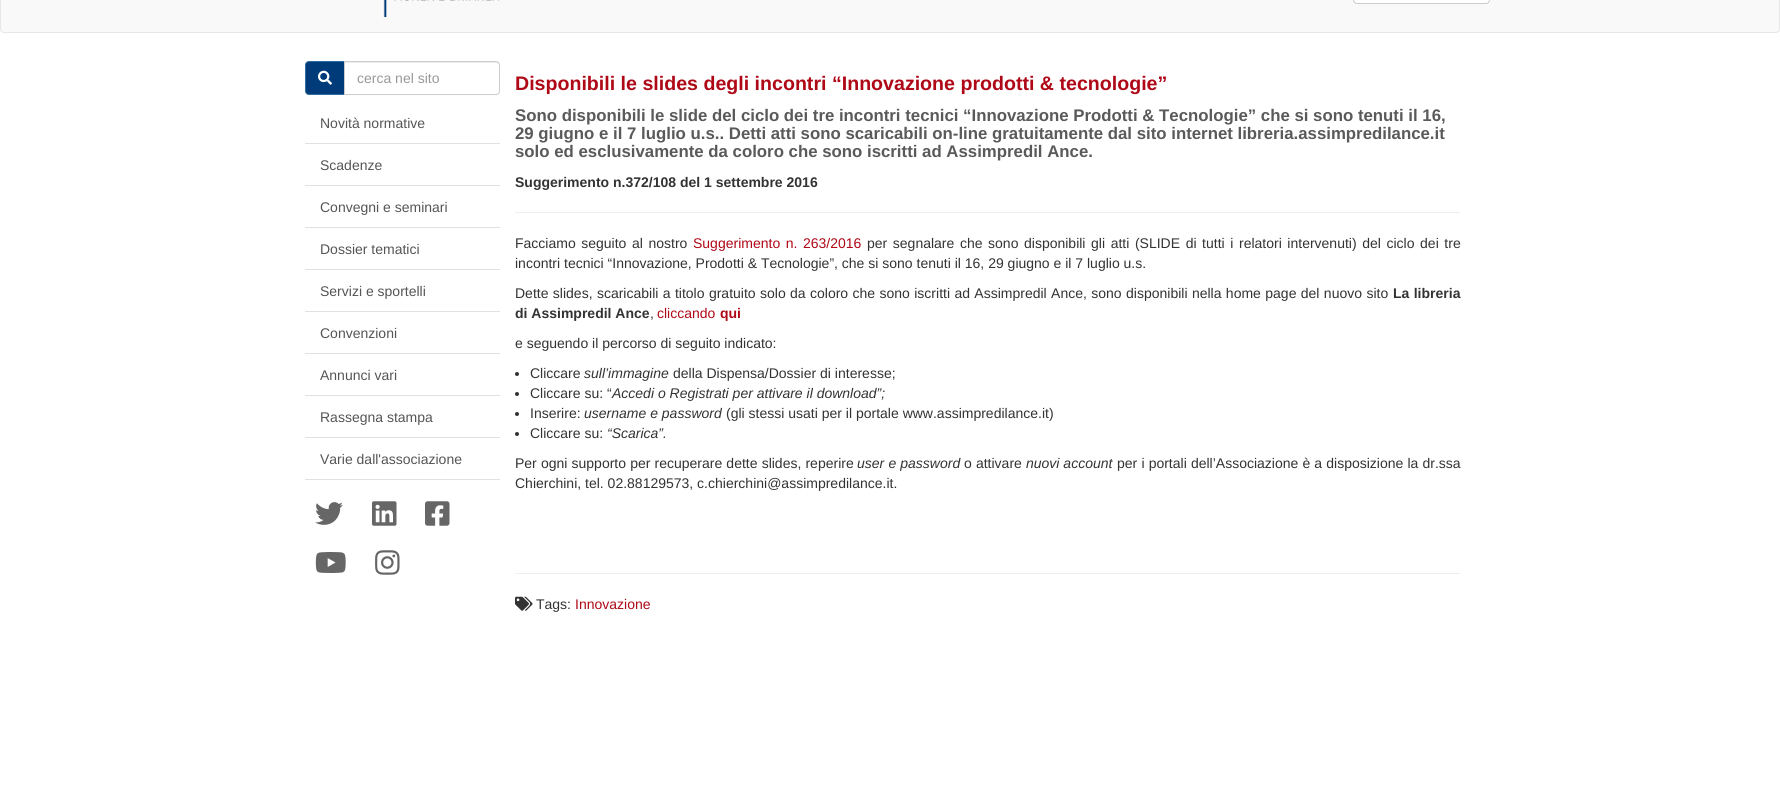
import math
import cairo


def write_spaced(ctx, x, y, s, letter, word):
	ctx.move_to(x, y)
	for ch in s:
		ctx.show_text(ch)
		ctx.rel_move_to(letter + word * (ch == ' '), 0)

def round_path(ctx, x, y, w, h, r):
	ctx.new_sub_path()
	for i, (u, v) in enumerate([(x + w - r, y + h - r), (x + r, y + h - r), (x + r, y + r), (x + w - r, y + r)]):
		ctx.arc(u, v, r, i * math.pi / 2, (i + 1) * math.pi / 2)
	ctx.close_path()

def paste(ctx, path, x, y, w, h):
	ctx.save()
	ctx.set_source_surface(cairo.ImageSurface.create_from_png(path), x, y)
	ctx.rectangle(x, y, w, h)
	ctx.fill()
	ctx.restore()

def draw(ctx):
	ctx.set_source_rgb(1, 1, 1)
	ctx.paint()
	ctx.set_source_rgb(0.973, 0.973, 0.973)
	round_path(ctx, 0.5, -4.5, 1779, 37, 3.5)
	ctx.fill_preserve()
	ctx.set_source_rgb(0.906, 0.906, 0.906)
	ctx.set_line_width(1)
	ctx.stroke()
	paste(ctx, 'media/1.png', 383, 0, 117, 17)
	ctx.set_source_rgb(1, 1, 1)
	round_path(ctx, 1353.5, -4.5, 136, 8, 3.5)
	ctx.fill_preserve()
	ctx.set_source_rgb(0.8, 0.8, 0.8)
	ctx.stroke()
	ctx.set_source_rgb(0, 0.231, 0.475)
	ctx.new_path()
	ctx.move_to(309, 61.5)
	ctx.line_to(344.5, 61.5)
	ctx.line_to(344.5, 94.5)
	ctx.line_to(309, 94.5)
	ctx.curve_to(307, 94.5, 305.5, 93, 305.5, 91)
	ctx.line_to(305.5, 65)
	ctx.curve_to(305.5, 63, 307, 61.5, 309, 61.5)
	ctx.close_path()
	ctx.fill_preserve()
	ctx.set_source_rgb(0.18, 0.427, 0.643)
	ctx.stroke()
	paste(ctx, 'media/2.png', 318, 70, 14, 15)
	ctx.set_source_rgb(1, 1, 1)
	ctx.new_path()
	ctx.move_to(344, 61)
	ctx.line_to(496, 61)
	ctx.curve_to(498, 61, 500, 63, 500, 65)
	ctx.line_to(500, 91)
	ctx.curve_to(500, 93, 498, 95, 496, 95)
	ctx.line_to(344, 95)
	ctx.close_path()
	ctx.fill()
	ctx.set_source_rgb(0.925, 0.925, 0.925)
	ctx.new_path()
	ctx.move_to(345, 63)
	ctx.line_to(496, 63)
	ctx.curve_to(498, 63, 499, 64, 499, 66)
	ctx.curve_to(499, 64, 499, 62, 497, 62)
	ctx.line_to(345, 62)
	ctx.close_path()
	ctx.fill()
	ctx.new_path()
	ctx.move_to(344.5, 61.5)
	ctx.line_to(496, 61.5)
	ctx.curve_to(498, 61.5, 499.5, 63, 499.5, 65)
	ctx.line_to(499.5, 91)
	ctx.curve_to(499.5, 93, 498, 94.5, 496, 94.5)
	ctx.line_to(344.5, 94.5)
	ctx.close_path()
	ctx.set_source_rgb(0.8, 0.8, 0.8)
	ctx.stroke()
	ctx.select_font_face('Liberation Sans')
	ctx.set_font_size(14)
	ctx.set_source_rgb(0.6, 0.6, 0.6)
	ctx.move_to(357, 83)
	ctx.show_text('cerca nel sito')
	ctx.set_source_rgb(0.882, 0.882, 0.882)
	ctx.rectangle(305, 143, 195, 1)
	ctx.fill()
	ctx.set_source_rgb(0.333, 0.333, 0.333)
	ctx.move_to(320, 128)
	ctx.show_text('Novità normative')
	ctx.set_source_rgb(0.882, 0.882, 0.882)
	ctx.rectangle(305, 185, 195, 1)
	ctx.fill()
	ctx.set_source_rgb(0.333, 0.333, 0.333)
	ctx.move_to(320, 170)
	ctx.show_text('Scadenze')
	ctx.set_source_rgb(0.882, 0.882, 0.882)
	ctx.rectangle(305, 227, 195, 1)
	ctx.fill()
	ctx.set_source_rgb(0.333, 0.333, 0.333)
	ctx.move_to(320, 212)
	ctx.show_text('Convegni e seminari')
	ctx.set_source_rgb(0.882, 0.882, 0.882)
	ctx.rectangle(305, 269, 195, 1)
	ctx.fill()
	ctx.set_source_rgb(0.333, 0.333, 0.333)
	ctx.move_to(320, 254)
	ctx.show_text('Dossier tematici')
	ctx.set_source_rgb(0.882, 0.882, 0.882)
	ctx.rectangle(305, 311, 195, 1)
	ctx.fill()
	ctx.set_source_rgb(0.333, 0.333, 0.333)
	ctx.move_to(320, 296)
	ctx.show_text('Servizi e sportelli')
	ctx.set_source_rgb(0.882, 0.882, 0.882)
	ctx.rectangle(305, 353, 195, 1)
	ctx.fill()
	ctx.set_source_rgb(0.333, 0.333, 0.333)
	ctx.move_to(320, 338)
	ctx.show_text('Convenzioni')
	ctx.set_source_rgb(0.882, 0.882, 0.882)
	ctx.rectangle(305, 395, 195, 1)
	ctx.fill()
	ctx.set_source_rgb(0.333, 0.333, 0.333)
	ctx.move_to(320, 380)
	ctx.show_text('Annunci vari')
	ctx.set_source_rgb(0.882, 0.882, 0.882)
	ctx.rectangle(305, 437, 195, 1)
	ctx.fill()
	ctx.set_source_rgb(0.333, 0.333, 0.333)
	ctx.move_to(320, 422)
	ctx.show_text('Rassegna stampa')
	ctx.set_source_rgb(0.882, 0.882, 0.882)
	ctx.rectangle(305, 479, 195, 1)
	ctx.fill()
	ctx.set_source_rgb(0.333, 0.333, 0.333)
	ctx.move_to(320, 464)
	ctx.show_text('Varie dall\'associazione')
	paste(ctx, 'media/3.png', 315, 502, 28, 23)
	paste(ctx, 'media/4.png', 372, 501, 25, 25)
	paste(ctx, 'media/5.png', 425, 501, 25, 25)
	paste(ctx, 'media/6.png', 315, 552, 31, 21)
	paste(ctx, 'media/7.png', 375, 550, 25, 25)
	ctx.select_font_face('Liberation Sans', cairo.FONT_SLANT_NORMAL, cairo.FONT_WEIGHT_BOLD)
	ctx.set_font_size(19.6)
	ctx.set_source_rgb(0.686, 0.035, 0.09)
	ctx.move_to(515, 90)
	ctx.show_text('Disponibili le slides degli incontri “Innovazione prodotti & tecnologie”')
	ctx.set_font_size(16.8)
	ctx.set_source_rgb(0.357, 0.353, 0.357)
	for x, y, s in [
		(515, 121, 'Sono disponibili le slide del ciclo dei tre incontri tecnici “Innovazione Prodotti & Tecnologie” che si sono tenuti il 16,'),
		(515, 139, '29 giugno e il 7 luglio u.s.. Detti atti sono scaricabili on-line gratuitamente dal sito internet libreria.assimpredilance.it'),
		(515, 157, 'solo ed esclusivamente da coloro che sono iscritti ad Assimpredil Ance.'),
	]:
		ctx.move_to(x, y)
		ctx.show_text(s)
	ctx.set_font_size(14)
	ctx.set_source_rgb(0.2, 0.2, 0.2)
	ctx.move_to(515, 187)
	ctx.show_text('Suggerimento n.372/108 del 1 settembre 2016')
	ctx.set_source_rgb(0.933, 0.933, 0.933)
	ctx.rectangle(515, 212, 945, 1)
	ctx.fill()
	ctx.select_font_face('Liberation Sans')
	ctx.set_source_rgb(0.2, 0.2, 0.2)
	write_spaced(ctx, 515, 248, 'Facciamo seguito al nostro', 0, 1.7)
	ctx.set_source_rgb(0.686, 0.035, 0.09)
	write_spaced(ctx, 693, 248, 'Suggerimento n. 263/2016', 0, 1.7)
	ctx.set_source_rgb(0.2, 0.2, 0.2)
	write_spaced(ctx, 867, 248, 'per segnalare che sono disponibili gli atti (SLIDE di tutti i relatori intervenuti) del ciclo dei tre', 0, 1.7)
	ctx.move_to(515, 268)
	ctx.show_text('incontri tecnici “Innovazione, Prodotti & Tecnologie”, che si sono tenuti il 16, 29 giugno e il 7 luglio u.s.')
	write_spaced(ctx, 515, 298, 'Dette slides, scaricabili a titolo gratuito solo da coloro che sono iscritti ad Assimpredil Ance, sono disponibili nella home page del nuovo sito', 0, 0.5)
	ctx.select_font_face('Liberation Sans', cairo.FONT_SLANT_NORMAL, cairo.FONT_WEIGHT_BOLD)
	write_spaced(ctx, 1393, 298, 'La libreria', 0, 0.5)
	ctx.move_to(515, 318)
	ctx.show_text('di Assimpredil Ance')
	ctx.select_font_face('Liberation Sans')
	ctx.move_to(650, 318)
	ctx.show_text(',')
	ctx.set_source_rgb(0.686, 0.035, 0.09)
	ctx.move_to(657, 318)
	ctx.show_text('cliccando')
	ctx.select_font_face('Liberation Sans', cairo.FONT_SLANT_NORMAL, cairo.FONT_WEIGHT_BOLD)
	ctx.move_to(720, 318)
	ctx.show_text('qui')
	ctx.select_font_face('Liberation Sans')
	ctx.set_source_rgb(0.2, 0.2, 0.2)
	ctx.move_to(515, 348)
	ctx.show_text('e seguendo il percorso di seguito indicato:')
	ctx.new_path()
	ctx.arc(517, 374, 2, 0, 2 * math.pi)
	ctx.fill()
	ctx.move_to(530, 378)
	ctx.show_text('Cliccare')
	ctx.select_font_face('Liberation Sans', cairo.FONT_SLANT_ITALIC)
	ctx.move_to(584, 378)
	ctx.show_text('sull’immagine')
	ctx.select_font_face('Liberation Sans')
	ctx.move_to(673, 378)
	ctx.show_text('della Dispensa/Dossier di interesse;')
	ctx.new_path()
	ctx.arc(517, 394, 2, 0, 2 * math.pi)
	ctx.fill()
	ctx.move_to(530, 398)
	ctx.show_text('Cliccare su: “')
	ctx.select_font_face('Liberation Sans', cairo.FONT_SLANT_ITALIC)
	ctx.move_to(612, 398)
	ctx.show_text('Accedi o Registrati per attivare il download”;')
	ctx.new_path()
	ctx.arc(517, 414, 2, 0, 2 * math.pi)
	ctx.fill()
	ctx.select_font_face('Liberation Sans')
	ctx.move_to(530, 418)
	ctx.show_text('Inserire:')
	ctx.select_font_face('Liberation Sans', cairo.FONT_SLANT_ITALIC)
	ctx.move_to(584, 418)
	ctx.show_text('username e password')
	ctx.select_font_face('Liberation Sans')
	ctx.move_to(726, 418)
	ctx.show_text('(gli stessi usati per il portale www.assimpredilance.it)')
	ctx.new_path()
	ctx.arc(517, 434, 2, 0, 2 * math.pi)
	ctx.fill()
	ctx.move_to(530, 438)
	ctx.show_text('Cliccare su:')
	ctx.select_font_face('Liberation Sans', cairo.FONT_SLANT_ITALIC)
	ctx.move_to(607, 438)
	ctx.show_text('“Scarica”.')
	ctx.select_font_face('Liberation Sans')
	write_spaced(ctx, 515, 468, 'Per ogni supporto per recuperare dette slides, reperire', 0, 0.25)
	ctx.select_font_face('Liberation Sans', cairo.FONT_SLANT_ITALIC)
	write_spaced(ctx, 857, 468, 'user e password', 0, 0.25)
	ctx.select_font_face('Liberation Sans')
	write_spaced(ctx, 964, 468, 'o attivare', 0, 0.25)
	ctx.select_font_face('Liberation Sans', cairo.FONT_SLANT_ITALIC)
	ctx.move_to(1026, 468)
	ctx.show_text('nuovi account')
	ctx.select_font_face('Liberation Sans')
	write_spaced(ctx, 1117, 468, 'per i portali dell’Associazione è a disposizione la dr.ssa', 0, 0.25)
	ctx.move_to(515, 488)
	ctx.show_text('Chierchini, tel. 02.88129573, c.chierchini@assimpredilance.it.')
	ctx.set_source_rgb(0.933, 0.933, 0.933)
	ctx.rectangle(515, 573, 945, 1)
	ctx.fill()
	paste(ctx, 'media/8.png', 515, 596, 18, 15)
	ctx.set_source_rgb(0.2, 0.2, 0.2)
	ctx.move_to(536, 609)
	ctx.show_text('Tags:')
	ctx.set_source_rgb(0.686, 0.035, 0.09)
	ctx.move_to(575, 609)
	ctx.show_text('Innovazione')


surface = cairo.ImageSurface(cairo.FORMAT_RGB24, 1780, 801)
ctx = cairo.Context(surface)
options = cairo.FontOptions()
options.set_hint_metrics(cairo.HINT_METRICS_OFF)
options.set_hint_style(cairo.HINT_STYLE_NONE)
ctx.set_font_options(options)
ctx.set_miter_limit(4)
draw(ctx)
surface.write_to_png('image.png')
